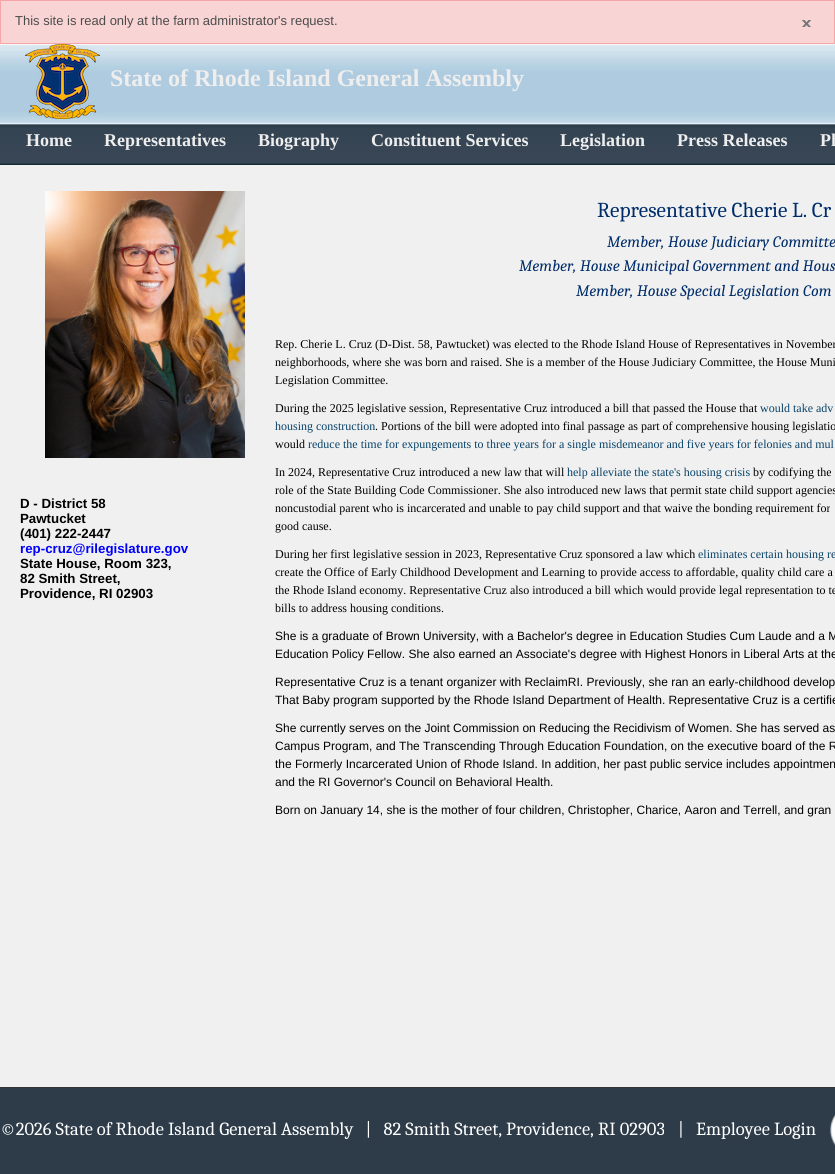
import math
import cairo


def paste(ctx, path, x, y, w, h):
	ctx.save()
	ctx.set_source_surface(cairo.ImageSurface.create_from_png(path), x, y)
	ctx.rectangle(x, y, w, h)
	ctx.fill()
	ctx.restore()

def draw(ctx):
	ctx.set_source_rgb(0.973, 0.831, 0.831)
	ctx.paint()
	ctx.rectangle(0.5, 0.5, 834, 43)
	ctx.set_source_rgb(0.961, 0.651, 0.655)
	ctx.set_line_width(1)
	ctx.stroke()
	ctx.select_font_face('Liberation Sans')
	ctx.set_font_size(13)
	ctx.set_source_rgb(0.298, 0.298, 0.298)
	ctx.move_to(15, 25)
	ctx.show_text('This site is read only at the farm administrator\'s request.')
	paste(ctx, 'media/1.png', 801, 20, 11, 7)
	ctx.set_source_rgb(0.941, 0.941, 0.941)
	ctx.rectangle(0, 165, 835, 922)
	ctx.fill()
	paste(ctx, 'media/2.png', 0, 44, 835, 80)
	paste(ctx, 'media/3.png', 25, 44, 75, 75)
	ctx.select_font_face('Liberation Serif', cairo.FONT_SLANT_NORMAL, cairo.FONT_WEIGHT_BOLD)
	ctx.set_font_size(24)
	ctx.set_source_rgb(0.933, 0.933, 0.933)
	ctx.move_to(110, 86)
	ctx.show_text('State of Rhode Island General Assembly')
	gradient = cairo.LinearGradient(600, 124, 600, 165)
	gradient.add_color_stop_rgba(0, 0.569, 0.643, 0.702, 1)
	gradient.add_color_stop_rgba(0.03, 0.18, 0.235, 0.286, 1)
	gradient.add_color_stop_rgba(0.12, 0.204, 0.267, 0.325, 1)
	gradient.add_color_stop_rgba(0.95, 0.224, 0.275, 0.337, 1)
	gradient.add_color_stop_rgba(1, 0.027, 0.129, 0.176, 1)
	ctx.set_source(gradient)
	ctx.rectangle(0, 124, 835, 41)
	ctx.fill()
	ctx.set_font_size(18)
	ctx.set_source_rgb(0.933, 0.933, 0.933)
	for x, y, s in [
		(26, 146, 'Home'),
		(104, 146, 'Representatives'),
		(258, 146, 'Biography'),
		(371, 146, 'Constituent Services'),
		(560, 146, 'Legislation'),
		(677, 146, 'Press Releases'),
		(820, 146, 'Ph'),
	]:
		ctx.move_to(x, y)
		ctx.show_text(s)
	paste(ctx, 'media/4.png', 45, 191, 200, 267)
	ctx.select_font_face('Liberation Sans', cairo.FONT_SLANT_NORMAL, cairo.FONT_WEIGHT_BOLD)
	ctx.set_font_size(13.3)
	ctx.set_source_rgb(0, 0, 0)
	for x, y, s in [
		(20, 508, 'D - District 58'),
		(20, 523, 'Pawtucket'),
		(20, 538, '(401) 222-2447'),
	]:
		ctx.move_to(x, y)
		ctx.show_text(s)
	ctx.set_source_rgb(0, 0, 1)
	ctx.move_to(20, 553)
	ctx.show_text('rep-cruz@rilegislature.gov')
	ctx.set_source_rgb(0, 0, 0)
	for x, y, s in [
		(20, 568, 'State House, Room 323,'),
		(20, 583, '82 Smith Street,'),
		(20, 598, 'Providence, RI 02903'),
	]:
		ctx.move_to(x, y)
		ctx.show_text(s)
	ctx.select_font_face('Caladea')
	ctx.set_font_size(21.25)
	ctx.set_source_rgb(0, 0.176, 0.416)
	ctx.move_to(597, 217)
	ctx.show_text('Representative Cherie L. Cr')
	ctx.select_font_face('Caladea', cairo.FONT_SLANT_ITALIC)
	ctx.set_font_size(16)
	for x, y, s in [
		(607, 247, 'Member, House Judiciary Committe'),
		(519, 271, 'Member, House Municipal Government and Hous'),
		(576, 296, 'Member, House Special Legislation Com'),
	]:
		ctx.move_to(x, y)
		ctx.show_text(s)
	ctx.select_font_face('Liberation Serif')
	ctx.set_font_size(12)
	ctx.set_source_rgb(0, 0, 0)
	for x, y, s in [
		(275, 348, 'Rep. Cherie L. Cruz (D-Dist. 58, Pawtucket) was elected to the Rhode Island House of Representatives in November'),
		(275, 366, 'neighborhoods, where she was born and raised. She is a member of the House Judiciary Committee, the House Muni'),
		(275, 384, 'Legislation Committee.'),
		(275, 412, 'During the 2025 legislative session, Representative Cruz introduced a bill that passed the House that'),
	]:
		ctx.move_to(x, y)
		ctx.show_text(s)
	ctx.set_source_rgb(0.031, 0.259, 0.408)
	ctx.move_to(760, 412)
	ctx.show_text('would take adv')
	ctx.move_to(275, 430)
	ctx.show_text('housing construction')
	ctx.set_source_rgb(0, 0, 0)
	ctx.move_to(375, 430)
	ctx.show_text('. Portions of the bill were adopted into final passage as part of comprehensive housing legislatio')
	ctx.move_to(275, 448)
	ctx.show_text('would')
	ctx.set_source_rgb(0.031, 0.259, 0.408)
	ctx.move_to(308, 448)
	ctx.show_text('reduce the time for expungements to three years for a single misdemeanor and five years for felonies and mul')
	ctx.set_source_rgb(0, 0, 0)
	ctx.move_to(275, 476)
	ctx.show_text('In 2024, Representative Cruz introduced a new law that will')
	ctx.set_source_rgb(0.031, 0.259, 0.408)
	ctx.move_to(567, 476)
	ctx.show_text('help alleviate the state\'s housing crisis')
	ctx.set_source_rgb(0, 0, 0)
	for x, y, s in [
		(753, 476, 'by codifying the'),
		(275, 494, 'role of the State Building Code Commissioner. She also introduced new laws that permit state child support agencies'),
		(275, 512, 'noncustodial parent who is incarcerated and unable to pay child support and that waive the bonding requirement for'),
		(275, 530, 'good cause.'),
		(275, 558, 'During her first legislative session in 2023, Representative Cruz sponsored a law which'),
	]:
		ctx.move_to(x, y)
		ctx.show_text(s)
	ctx.set_source_rgb(0.031, 0.259, 0.408)
	ctx.move_to(698, 558)
	ctx.show_text('eliminates certain housing re')
	ctx.set_source_rgb(0, 0, 0)
	for x, y, s in [
		(275, 576, 'create the Office of Early Childhood Development and Learning to provide access to affordable, quality child care a'),
		(275, 594, 'the Rhode Island economy. Representative Cruz also introduced a bill which would provide legal representation to te'),
		(275, 612, 'bills to address housing conditions.'),
	]:
		ctx.move_to(x, y)
		ctx.show_text(s)
	ctx.select_font_face('Liberation Sans')
	for x, y, s in [
		(275, 640, 'She is a graduate of Brown University, with a Bachelor\'s degree in Education Studies Cum Laude and a M'),
		(275, 658, 'Education Policy Fellow. She also earned an Associate\'s degree with Highest Honors in Liberal Arts at the'),
		(275, 686, 'Representative Cruz is a tenant organizer with ReclaimRI. Previously, she ran an early-childhood develop'),
		(275, 704, 'That Baby program supported by the Rhode Island Department of Health. Representative Cruz is a certifie'),
		(275, 732, 'She currently serves on the Joint Commission on Reducing the Recidivism of Women. She has served as'),
		(275, 750, 'Campus Program, and The Transcending Through Education Foundation, on the executive board of the R'),
		(275, 768, 'the Formerly Incarcerated Union of Rhode Island. In addition, her past public service includes appointmen'),
		(275, 786, 'and the RI Governor\'s Council on Behavioral Health.'),
		(275, 814, 'Born on January 14, she is the mother of four children, Christopher, Charice, Aaron and Terrell, and gran'),
	]:
		ctx.move_to(x, y)
		ctx.show_text(s)
	ctx.set_source_rgb(0.18, 0.235, 0.286)
	ctx.rectangle(0, 1088, 835, 86)
	ctx.fill()
	ctx.set_source_rgb(0.2, 0.2, 0.2)
	ctx.rectangle(0, 1087, 835, 1)
	ctx.fill()
	ctx.select_font_face('Caladea')
	ctx.set_font_size(18.5)
	ctx.set_source_rgb(1, 1, 1)
	ctx.move_to(0, 1135)
	ctx.show_text('©2026 State of Rhode Island General Assembly   |   82 Smith Street, Providence, RI 02903')
	ctx.move_to(678, 1135)
	ctx.show_text('|   Employee Login')
	paste(ctx, 'media/5.png', 830, 1114, 5, 32)


surface = cairo.ImageSurface(cairo.FORMAT_RGB24, 835, 1174)
ctx = cairo.Context(surface)
options = cairo.FontOptions()
options.set_hint_metrics(cairo.HINT_METRICS_OFF)
options.set_hint_style(cairo.HINT_STYLE_NONE)
ctx.set_font_options(options)
ctx.set_miter_limit(4)
draw(ctx)
surface.write_to_png('image.png')
